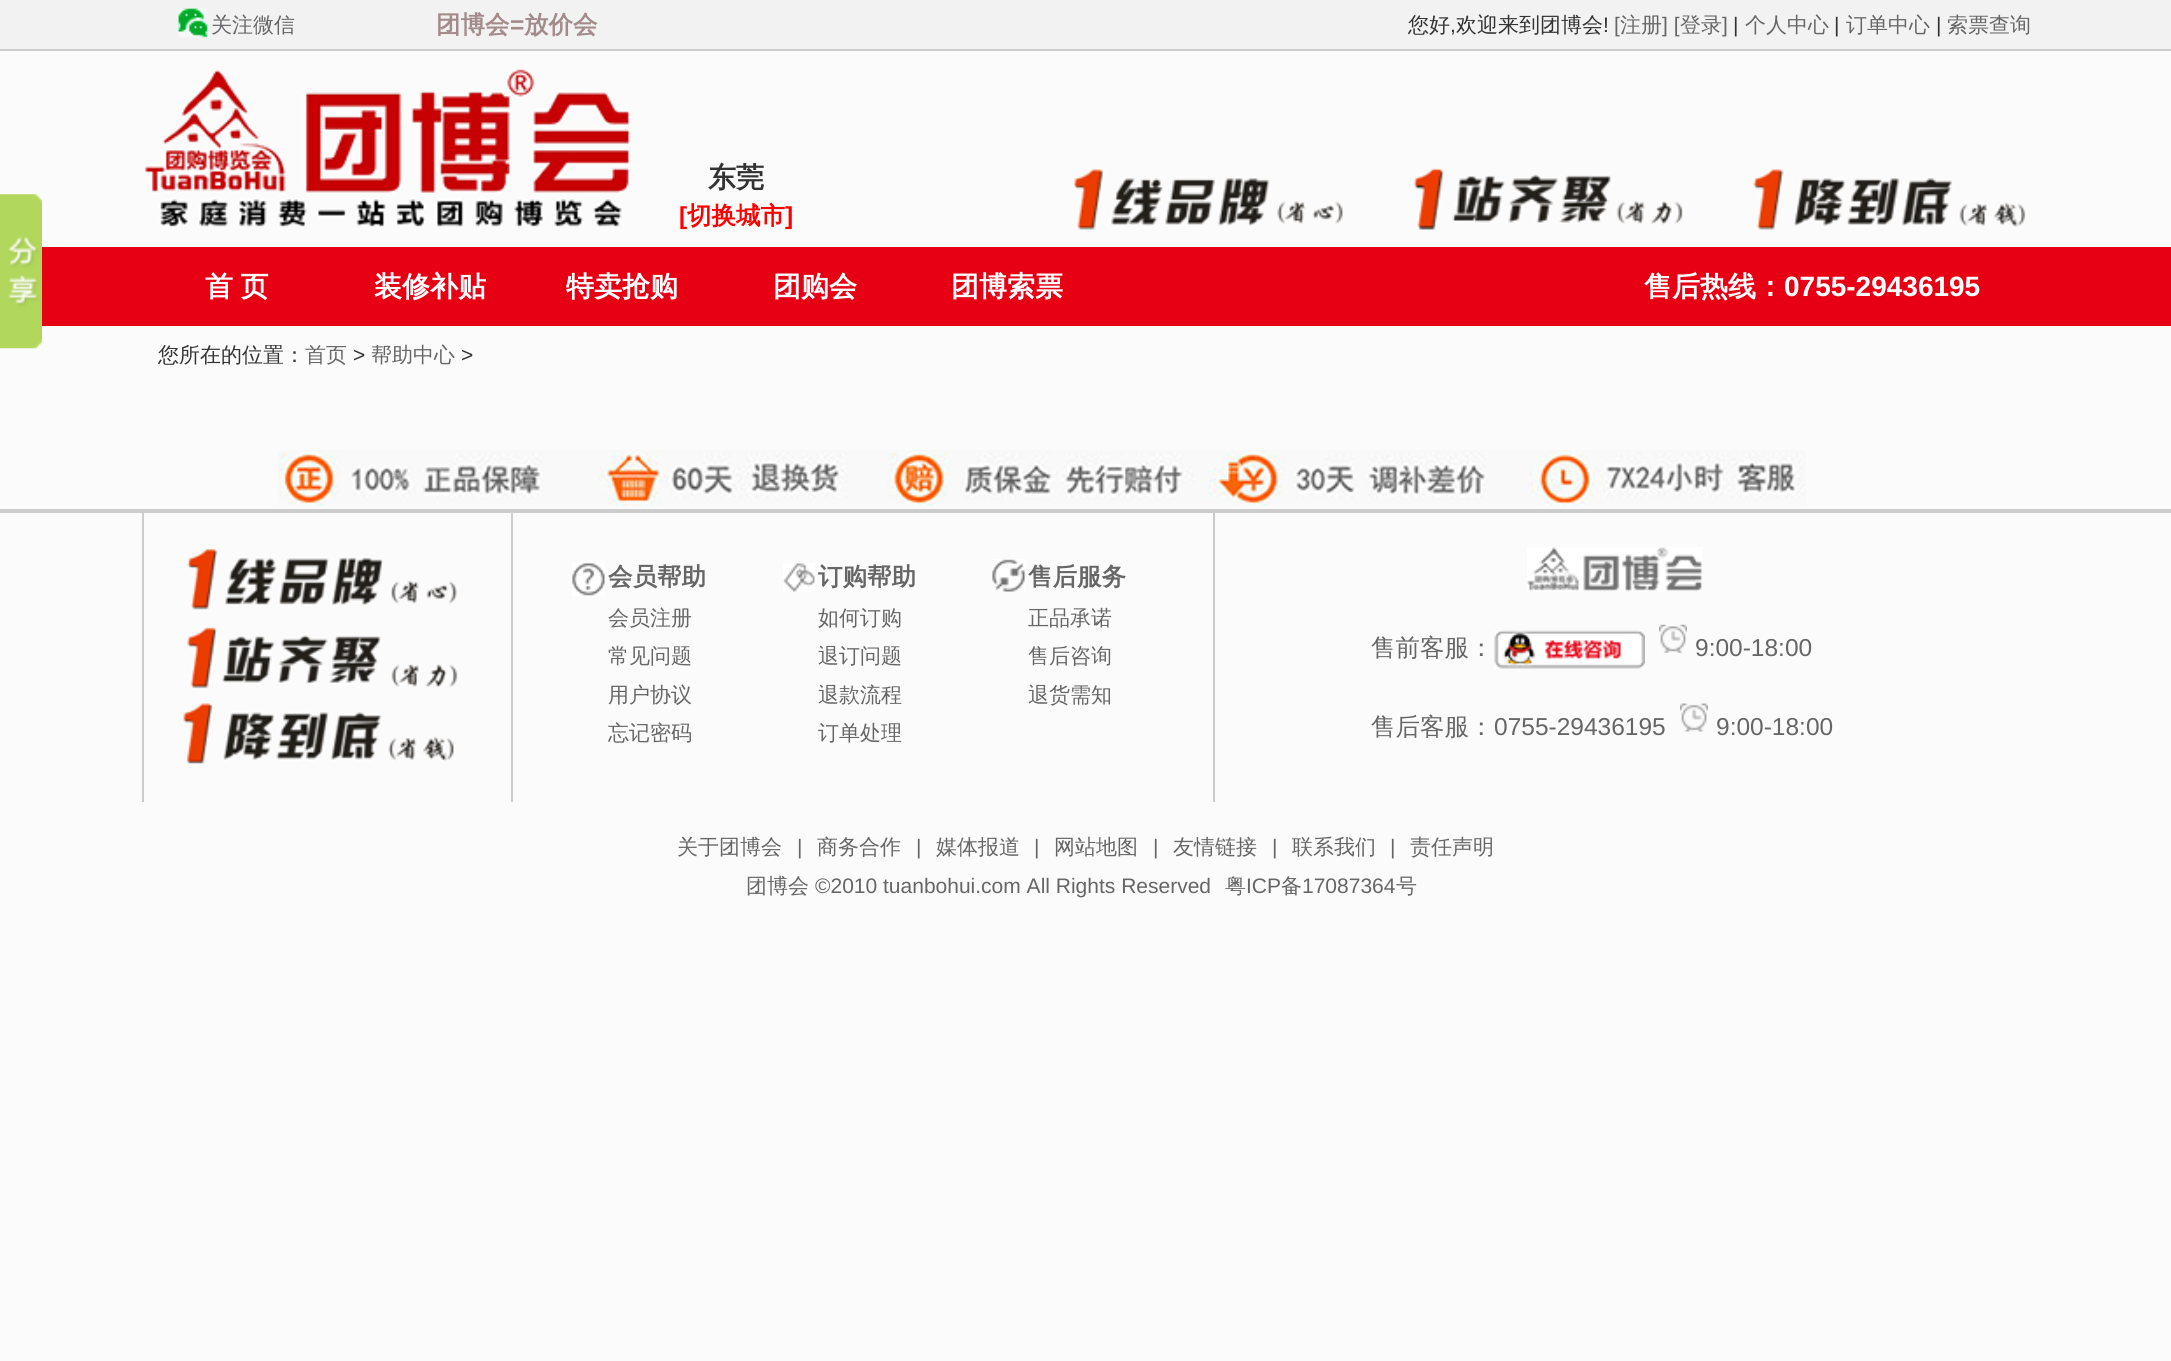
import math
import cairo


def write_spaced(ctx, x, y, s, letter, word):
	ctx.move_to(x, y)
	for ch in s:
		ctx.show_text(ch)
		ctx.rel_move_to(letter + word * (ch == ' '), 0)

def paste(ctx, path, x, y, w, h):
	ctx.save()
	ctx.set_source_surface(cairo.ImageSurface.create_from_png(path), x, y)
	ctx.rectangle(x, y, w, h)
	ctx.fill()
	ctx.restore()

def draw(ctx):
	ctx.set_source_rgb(0.988, 0.984, 0.984)
	ctx.paint()
	ctx.set_source_rgb(0.949, 0.949, 0.949)
	ctx.rectangle(0, 0, 2171, 49)
	ctx.fill()
	ctx.set_source_rgb(0.8, 0.8, 0.8)
	ctx.rectangle(0, 49, 2171, 2)
	ctx.fill()
	paste(ctx, 'media/1.png', 178, 8, 30, 30)
	ctx.select_font_face('WenQuanYi Zen Hei Medium')
	ctx.set_font_size(21)
	ctx.set_source_rgb(0.4, 0.4, 0.4)
	ctx.move_to(211, 32)
	ctx.show_text('关注微信')
	ctx.select_font_face('WenQuanYi Zen Hei', cairo.FONT_SLANT_NORMAL, cairo.FONT_WEIGHT_BOLD)
	ctx.set_font_size(24.5)
	ctx.set_source_rgb(0.639, 0.545, 0.545)
	ctx.move_to(436, 33)
	ctx.show_text('团博会')
	ctx.select_font_face('Liberation Sans', cairo.FONT_SLANT_NORMAL, cairo.FONT_WEIGHT_BOLD)
	ctx.move_to(510, 33)
	ctx.show_text('=')
	ctx.select_font_face('WenQuanYi Zen Hei', cairo.FONT_SLANT_NORMAL, cairo.FONT_WEIGHT_BOLD)
	ctx.move_to(524, 33)
	ctx.show_text('放价会')
	ctx.select_font_face('WenQuanYi Zen Hei Medium')
	ctx.set_font_size(21)
	ctx.set_source_rgb(0.2, 0.2, 0.2)
	ctx.move_to(1408, 32)
	ctx.show_text('您好')
	ctx.select_font_face('Liberation Sans')
	ctx.move_to(1450, 32)
	ctx.show_text(',')
	ctx.select_font_face('WenQuanYi Zen Hei Medium')
	ctx.move_to(1456, 32)
	ctx.show_text('欢迎来到团博会')
	ctx.select_font_face('Liberation Sans')
	ctx.move_to(1603, 32)
	ctx.show_text('!')
	ctx.set_source_rgb(0.4, 0.4, 0.4)
	ctx.move_to(1614, 32)
	ctx.show_text('[')
	ctx.select_font_face('WenQuanYi Zen Hei Medium')
	ctx.move_to(1620, 32)
	ctx.show_text('注册')
	ctx.select_font_face('Liberation Sans')
	ctx.move_to(1662, 32)
	ctx.show_text('] [')
	ctx.select_font_face('WenQuanYi Zen Hei Medium')
	ctx.move_to(1680, 32)
	ctx.show_text('登录')
	ctx.select_font_face('Liberation Sans')
	ctx.move_to(1722, 32)
	ctx.show_text(']')
	ctx.set_source_rgb(0.2, 0.2, 0.2)
	ctx.move_to(1733, 32)
	ctx.show_text('|')
	ctx.select_font_face('WenQuanYi Zen Hei Medium')
	ctx.set_source_rgb(0.4, 0.4, 0.4)
	ctx.move_to(1745, 32)
	ctx.show_text('个人中心')
	ctx.select_font_face('Liberation Sans')
	ctx.set_source_rgb(0.2, 0.2, 0.2)
	ctx.move_to(1834, 32)
	ctx.show_text('|')
	ctx.select_font_face('WenQuanYi Zen Hei Medium')
	ctx.set_source_rgb(0.4, 0.4, 0.4)
	ctx.move_to(1846, 32)
	ctx.show_text('订单中心')
	ctx.select_font_face('Liberation Sans')
	ctx.set_source_rgb(0.2, 0.2, 0.2)
	ctx.move_to(1936, 32)
	ctx.show_text('|')
	ctx.select_font_face('WenQuanYi Zen Hei Medium')
	ctx.set_source_rgb(0.4, 0.4, 0.4)
	ctx.move_to(1947, 32)
	ctx.show_text('索票查询')
	paste(ctx, 'media/2.png', 0, 194, 42, 155)
	paste(ctx, 'media/3.png', 142, 69, 489, 158)
	ctx.select_font_face('WenQuanYi Zen Hei', cairo.FONT_SLANT_NORMAL, cairo.FONT_WEIGHT_BOLD)
	ctx.set_font_size(28)
	ctx.set_source_rgb(0.2, 0.2, 0.2)
	ctx.move_to(708, 187)
	ctx.show_text('东莞')
	ctx.select_font_face('Liberation Sans', cairo.FONT_SLANT_NORMAL, cairo.FONT_WEIGHT_BOLD)
	ctx.set_font_size(24.5)
	ctx.set_source_rgb(1, 0, 0)
	ctx.move_to(679, 224)
	ctx.show_text('[')
	ctx.select_font_face('WenQuanYi Zen Hei', cairo.FONT_SLANT_NORMAL, cairo.FONT_WEIGHT_BOLD)
	ctx.move_to(687, 224)
	ctx.show_text('切换城市')
	ctx.select_font_face('Liberation Sans', cairo.FONT_SLANT_NORMAL, cairo.FONT_WEIGHT_BOLD)
	ctx.move_to(785, 224)
	ctx.show_text(']')
	paste(ctx, 'media/4.png', 1074, 168, 952, 62)
	ctx.set_source_rgb(0.906, 0, 0.078)
	ctx.rectangle(42, 247, 2129, 79)
	ctx.fill()
	ctx.select_font_face('WenQuanYi Zen Hei', cairo.FONT_SLANT_NORMAL, cairo.FONT_WEIGHT_BOLD)
	ctx.set_font_size(28)
	ctx.set_source_rgb(1, 1, 1)
	write_spaced(ctx, 205, 296, '首 页', 0, -1)
	for x, y, s in [
		(374, 296, '装修补贴'),
		(566, 296, '特卖抢购'),
		(773, 296, '团购会'),
		(951, 296, '团博索票'),
		(1644, 296, '售后热线：'),
	]:
		ctx.move_to(x, y)
		ctx.show_text(s)
	ctx.select_font_face('Liberation Sans', cairo.FONT_SLANT_NORMAL, cairo.FONT_WEIGHT_BOLD)
	ctx.move_to(1784, 296)
	ctx.show_text('0755-29436195')
	ctx.select_font_face('WenQuanYi Zen Hei Medium')
	ctx.set_font_size(21)
	ctx.set_source_rgb(0.2, 0.2, 0.2)
	ctx.move_to(158, 362)
	ctx.show_text('您所在的位置：')
	ctx.set_source_rgb(0.4, 0.4, 0.4)
	ctx.move_to(305, 362)
	ctx.show_text('首页')
	ctx.select_font_face('Liberation Sans')
	ctx.set_source_rgb(0.2, 0.2, 0.2)
	ctx.move_to(353, 362)
	ctx.show_text('>')
	ctx.select_font_face('WenQuanYi Zen Hei Medium')
	ctx.set_source_rgb(0.4, 0.4, 0.4)
	ctx.move_to(371, 362)
	ctx.show_text('帮助中心')
	ctx.select_font_face('Liberation Sans')
	ctx.set_source_rgb(0.2, 0.2, 0.2)
	ctx.move_to(461, 362)
	ctx.show_text('>')
	ctx.set_source_rgb(0.8, 0.8, 0.8)
	ctx.rectangle(0, 509, 2171, 4)
	ctx.fill()
	paste(ctx, 'media/5.png', 278, 450, 1528, 56)
	ctx.rectangle(142, 513, 2, 289)
	ctx.fill()
	paste(ctx, 'media/6.png', 183, 549, 275, 215)
	ctx.rectangle(511, 513, 2, 289)
	ctx.fill()
	paste(ctx, 'media/7.png', 572, 563, 33, 33)
	ctx.select_font_face('WenQuanYi Zen Hei', cairo.FONT_SLANT_NORMAL, cairo.FONT_WEIGHT_BOLD)
	ctx.set_font_size(24.5)
	ctx.set_source_rgb(0.4, 0.4, 0.4)
	ctx.move_to(608, 585)
	ctx.show_text('会员帮助')
	ctx.select_font_face('WenQuanYi Zen Hei Medium')
	ctx.set_font_size(21)
	for x, y, s in [
		(608, 625, '会员注册'),
		(608, 663, '常见问题'),
		(608, 702, '用户协议'),
		(608, 740, '忘记密码'),
	]:
		ctx.move_to(x, y)
		ctx.show_text(s)
	paste(ctx, 'media/8.png', 783, 563, 32, 29)
	ctx.select_font_face('WenQuanYi Zen Hei', cairo.FONT_SLANT_NORMAL, cairo.FONT_WEIGHT_BOLD)
	ctx.set_font_size(24.5)
	ctx.move_to(818, 585)
	ctx.show_text('订购帮助')
	ctx.select_font_face('WenQuanYi Zen Hei Medium')
	ctx.set_font_size(21)
	for x, y, s in [
		(818, 625, '如何订购'),
		(818, 663, '退订问题'),
		(818, 702, '退款流程'),
		(818, 740, '订单处理'),
	]:
		ctx.move_to(x, y)
		ctx.show_text(s)
	paste(ctx, 'media/9.png', 992, 559, 34, 33)
	ctx.select_font_face('WenQuanYi Zen Hei', cairo.FONT_SLANT_NORMAL, cairo.FONT_WEIGHT_BOLD)
	ctx.set_font_size(24.5)
	ctx.move_to(1028, 585)
	ctx.show_text('售后服务')
	ctx.select_font_face('WenQuanYi Zen Hei Medium')
	ctx.set_font_size(21)
	for x, y, s in [
		(1028, 625, '正品承诺'),
		(1028, 663, '售后咨询'),
		(1028, 702, '退货需知'),
	]:
		ctx.move_to(x, y)
		ctx.show_text(s)
	ctx.set_source_rgb(0.8, 0.8, 0.8)
	ctx.rectangle(1213, 513, 2, 289)
	ctx.fill()
	paste(ctx, 'media/10.png', 1527, 547, 176, 45)
	ctx.set_font_size(24.5)
	ctx.set_source_rgb(0.4, 0.4, 0.4)
	ctx.move_to(1371, 656)
	ctx.show_text('售前客服：')
	paste(ctx, 'media/11.png', 1494, 630, 151, 39)
	paste(ctx, 'media/12.png', 1659, 624, 28, 29)
	ctx.select_font_face('Liberation Sans')
	ctx.move_to(1695, 656)
	ctx.show_text('9:00-18:00')
	ctx.select_font_face('WenQuanYi Zen Hei Medium')
	ctx.move_to(1371, 735)
	ctx.show_text('售后客服：')
	ctx.select_font_face('Liberation Sans')
	ctx.move_to(1494, 735)
	ctx.show_text('0755-29436195')
	paste(ctx, 'media/13.png', 1680, 703, 28, 29)
	ctx.move_to(1716, 735)
	ctx.show_text('9:00-18:00')
	ctx.select_font_face('WenQuanYi Zen Hei Medium')
	ctx.set_font_size(21)
	ctx.move_to(677, 854)
	ctx.show_text('关于团博会')
	ctx.select_font_face('Liberation Sans')
	ctx.move_to(797, 854)
	ctx.show_text('|')
	ctx.select_font_face('WenQuanYi Zen Hei Medium')
	ctx.move_to(817, 854)
	ctx.show_text('商务合作')
	ctx.select_font_face('Liberation Sans')
	ctx.move_to(916, 854)
	ctx.show_text('|')
	ctx.select_font_face('WenQuanYi Zen Hei Medium')
	ctx.move_to(936, 854)
	ctx.show_text('媒体报道')
	ctx.select_font_face('Liberation Sans')
	ctx.move_to(1034, 854)
	ctx.show_text('|')
	ctx.select_font_face('WenQuanYi Zen Hei Medium')
	ctx.move_to(1054, 854)
	ctx.show_text('网站地图')
	ctx.select_font_face('Liberation Sans')
	ctx.move_to(1153, 854)
	ctx.show_text('|')
	ctx.select_font_face('WenQuanYi Zen Hei Medium')
	ctx.move_to(1173, 854)
	ctx.show_text('友情链接')
	ctx.select_font_face('Liberation Sans')
	ctx.move_to(1272, 854)
	ctx.show_text('|')
	ctx.select_font_face('WenQuanYi Zen Hei Medium')
	ctx.move_to(1292, 854)
	ctx.show_text('联系我们')
	ctx.select_font_face('Liberation Sans')
	ctx.move_to(1390, 854)
	ctx.show_text('|')
	ctx.select_font_face('WenQuanYi Zen Hei Medium')
	ctx.move_to(1410, 854)
	ctx.show_text('责任声明')
	ctx.move_to(746, 893)
	ctx.show_text('团博会')
	ctx.select_font_face('Liberation Sans')
	ctx.move_to(815, 893)
	ctx.show_text('©2010 tuanbohui.com All Rights Reserved')
	ctx.select_font_face('WenQuanYi Zen Hei Medium')
	ctx.move_to(1225, 893)
	ctx.show_text('粤')
	ctx.select_font_face('Liberation Sans')
	ctx.move_to(1246, 893)
	ctx.show_text('ICP')
	ctx.select_font_face('WenQuanYi Zen Hei Medium')
	ctx.move_to(1281, 893)
	ctx.show_text('备')
	ctx.select_font_face('Liberation Sans')
	ctx.move_to(1302, 893)
	ctx.show_text('17087364')
	ctx.select_font_face('WenQuanYi Zen Hei Medium')
	ctx.move_to(1396, 893)
	ctx.show_text('号')


surface = cairo.ImageSurface(cairo.FORMAT_RGB24, 2171, 1361)
ctx = cairo.Context(surface)
options = cairo.FontOptions()
options.set_hint_metrics(cairo.HINT_METRICS_OFF)
options.set_hint_style(cairo.HINT_STYLE_NONE)
ctx.set_font_options(options)
ctx.set_miter_limit(4)
draw(ctx)
surface.write_to_png('image.png')
